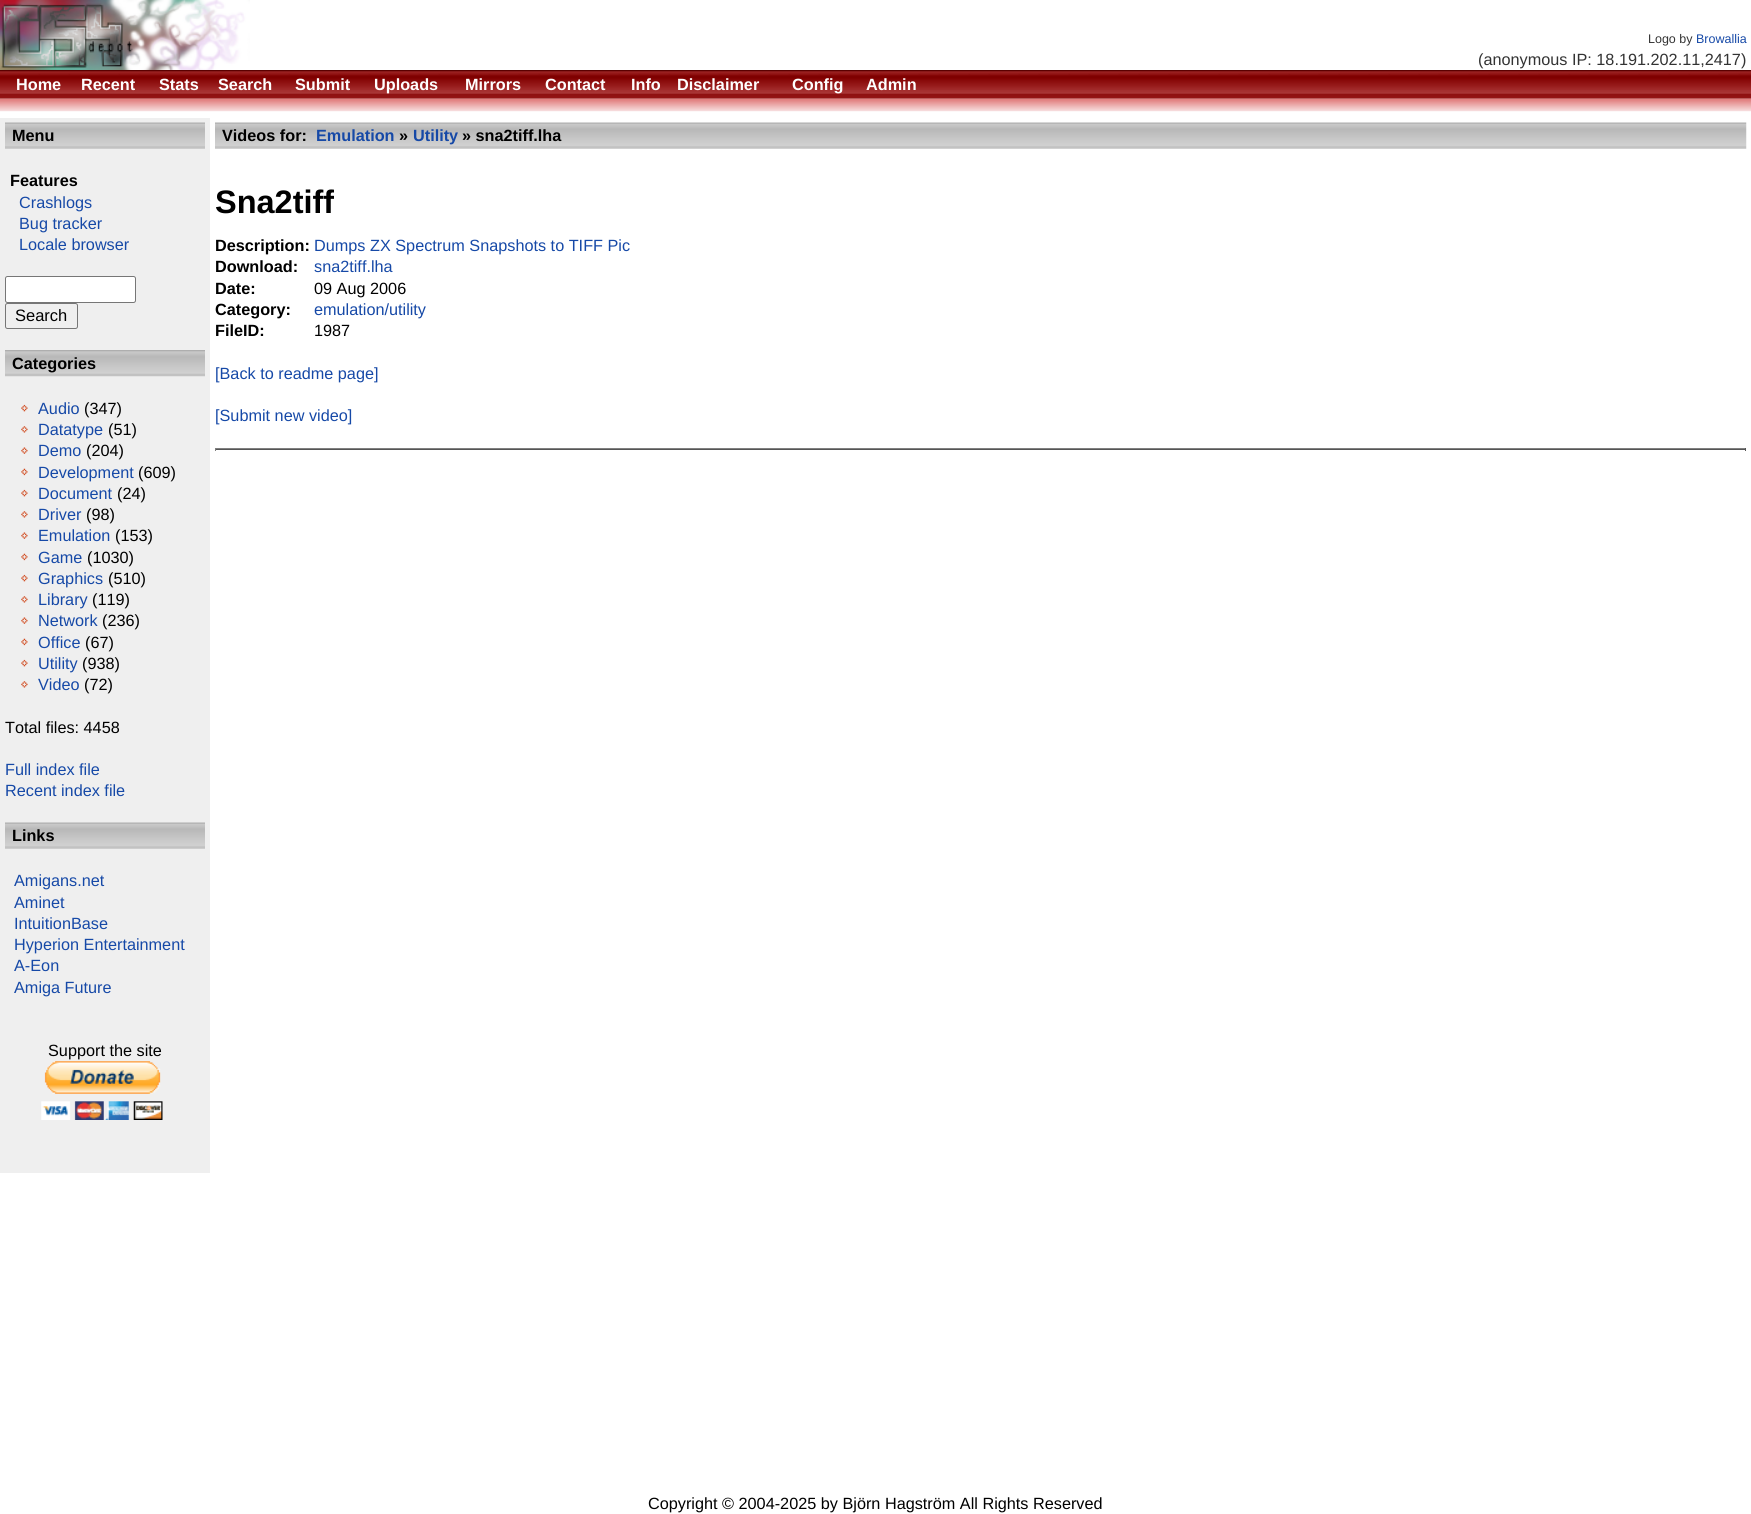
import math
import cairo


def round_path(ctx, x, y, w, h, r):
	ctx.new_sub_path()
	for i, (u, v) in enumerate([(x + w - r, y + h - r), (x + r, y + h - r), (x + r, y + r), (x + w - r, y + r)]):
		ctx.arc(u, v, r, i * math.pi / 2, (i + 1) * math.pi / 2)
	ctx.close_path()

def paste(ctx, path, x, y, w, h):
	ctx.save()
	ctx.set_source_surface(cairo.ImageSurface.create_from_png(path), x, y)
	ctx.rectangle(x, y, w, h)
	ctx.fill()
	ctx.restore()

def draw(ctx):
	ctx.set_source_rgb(1, 1, 1)
	ctx.paint()
	paste(ctx, 'media/1.png', 0, 0, 250, 70)
	ctx.select_font_face('Liberation Sans')
	ctx.set_font_size(12.5)
	ctx.set_source_rgb(0.2, 0.2, 0.2)
	ctx.move_to(1648, 43)
	ctx.show_text('Logo by')
	ctx.set_source_rgb(0.086, 0.286, 0.655)
	ctx.move_to(1696, 43)
	ctx.show_text('Browallia')
	ctx.set_font_size(16.25)
	ctx.set_source_rgb(0.2, 0.2, 0.2)
	ctx.move_to(1478, 65)
	ctx.show_text('(anonymous IP: 18.191.202.11,2417)')
	paste(ctx, 'media/2.png', 0, 70, 1751, 29)
	ctx.select_font_face('Liberation Sans', cairo.FONT_SLANT_NORMAL, cairo.FONT_WEIGHT_BOLD)
	ctx.set_source_rgb(1, 1, 1)
	for x, y, s in [
		(16, 90, 'Home'),
		(81, 90, 'Recent'),
		(159, 90, 'Stats'),
		(218, 90, 'Search'),
		(295, 90, 'Submit'),
		(374, 90, 'Uploads'),
		(465, 90, 'Mirrors'),
		(545, 90, 'Contact'),
		(631, 90, 'Info'),
		(677, 90, 'Disclaimer'),
		(792, 90, 'Config'),
		(866, 90, 'Admin'),
	]:
		ctx.move_to(x, y)
		ctx.show_text(s)
	paste(ctx, 'media/3.png', 0, 98, 1751, 14)
	ctx.set_source_rgb(0.937, 0.937, 0.937)
	ctx.rectangle(0, 118, 210, 1055)
	ctx.fill()
	paste(ctx, 'media/4.png', 5, 122, 200, 27)
	ctx.set_source_rgb(0, 0, 0)
	ctx.move_to(12, 141)
	ctx.show_text('Menu')
	ctx.move_to(10, 186)
	ctx.show_text('Features')
	ctx.select_font_face('Liberation Sans')
	ctx.set_source_rgb(0.086, 0.286, 0.655)
	for x, y, s in [
		(19, 208, 'Crashlogs'),
		(19, 229, 'Bug tracker'),
		(19, 250, 'Locale browser'),
	]:
		ctx.move_to(x, y)
		ctx.show_text(s)
	ctx.set_source_rgb(1, 1, 1)
	round_path(ctx, 5.5, 276.5, 130, 26, 2)
	ctx.fill_preserve()
	ctx.set_source_rgb(0.463, 0.463, 0.463)
	ctx.set_line_width(1)
	ctx.stroke()
	round_path(ctx, 5.5, 303.5, 72, 25, 2)
	ctx.stroke()
	ctx.set_font_size(16.5)
	ctx.set_source_rgb(0, 0, 0)
	ctx.move_to(15, 321)
	ctx.show_text('Search')
	paste(ctx, 'media/5.png', 5, 350, 200, 27)
	ctx.select_font_face('Liberation Sans', cairo.FONT_SLANT_NORMAL, cairo.FONT_WEIGHT_BOLD)
	ctx.set_font_size(16.25)
	ctx.move_to(12, 369)
	ctx.show_text('Categories')
	paste(ctx, 'media/6.png', 21, 404, 7, 8)
	ctx.select_font_face('Liberation Sans')
	ctx.set_source_rgb(0.086, 0.286, 0.655)
	ctx.move_to(38, 414)
	ctx.show_text('Audio')
	ctx.set_source_rgb(0, 0, 0)
	ctx.move_to(84, 414)
	ctx.show_text('(347)')
	paste(ctx, 'media/7.png', 21, 426, 7, 7)
	ctx.set_source_rgb(0.086, 0.286, 0.655)
	ctx.move_to(38, 435)
	ctx.show_text('Datatype')
	ctx.set_source_rgb(0, 0, 0)
	ctx.move_to(108, 435)
	ctx.show_text('(51)')
	paste(ctx, 'media/8.png', 21, 447, 7, 7)
	ctx.set_source_rgb(0.086, 0.286, 0.655)
	ctx.move_to(38, 456)
	ctx.show_text('Demo')
	ctx.set_source_rgb(0, 0, 0)
	ctx.move_to(86, 456)
	ctx.show_text('(204)')
	paste(ctx, 'media/9.png', 21, 468, 7, 8)
	ctx.set_source_rgb(0.086, 0.286, 0.655)
	ctx.move_to(38, 478)
	ctx.show_text('Development')
	ctx.set_source_rgb(0, 0, 0)
	ctx.move_to(138, 478)
	ctx.show_text('(609)')
	paste(ctx, 'media/6.png', 21, 489, 7, 8)
	ctx.set_source_rgb(0.086, 0.286, 0.655)
	ctx.move_to(38, 499)
	ctx.show_text('Document')
	ctx.set_source_rgb(0, 0, 0)
	ctx.move_to(117, 499)
	ctx.show_text('(24)')
	paste(ctx, 'media/7.png', 21, 511, 7, 7)
	ctx.set_source_rgb(0.086, 0.286, 0.655)
	ctx.move_to(38, 520)
	ctx.show_text('Driver')
	ctx.set_source_rgb(0, 0, 0)
	ctx.move_to(86, 520)
	ctx.show_text('(98)')
	paste(ctx, 'media/8.png', 21, 532, 7, 7)
	ctx.set_source_rgb(0.086, 0.286, 0.655)
	ctx.move_to(38, 541)
	ctx.show_text('Emulation')
	ctx.set_source_rgb(0, 0, 0)
	ctx.move_to(115, 541)
	ctx.show_text('(153)')
	paste(ctx, 'media/9.png', 21, 553, 7, 8)
	ctx.set_source_rgb(0.086, 0.286, 0.655)
	ctx.move_to(38, 563)
	ctx.show_text('Game')
	ctx.set_source_rgb(0, 0, 0)
	ctx.move_to(87, 563)
	ctx.show_text('(1030)')
	paste(ctx, 'media/6.png', 21, 574, 7, 8)
	ctx.set_source_rgb(0.086, 0.286, 0.655)
	ctx.move_to(38, 584)
	ctx.show_text('Graphics')
	ctx.set_source_rgb(0, 0, 0)
	ctx.move_to(108, 584)
	ctx.show_text('(510)')
	paste(ctx, 'media/7.png', 21, 596, 7, 7)
	ctx.set_source_rgb(0.086, 0.286, 0.655)
	ctx.move_to(38, 605)
	ctx.show_text('Library')
	ctx.set_source_rgb(0, 0, 0)
	ctx.move_to(92, 605)
	ctx.show_text('(119)')
	paste(ctx, 'media/8.png', 21, 617, 7, 7)
	ctx.set_source_rgb(0.086, 0.286, 0.655)
	ctx.move_to(38, 626)
	ctx.show_text('Network')
	ctx.set_source_rgb(0, 0, 0)
	ctx.move_to(102, 626)
	ctx.show_text('(236)')
	paste(ctx, 'media/9.png', 21, 638, 7, 8)
	ctx.set_source_rgb(0.086, 0.286, 0.655)
	ctx.move_to(38, 648)
	ctx.show_text('Office')
	ctx.set_source_rgb(0, 0, 0)
	ctx.move_to(85, 648)
	ctx.show_text('(67)')
	paste(ctx, 'media/6.png', 21, 659, 7, 8)
	ctx.set_source_rgb(0.086, 0.286, 0.655)
	ctx.move_to(38, 669)
	ctx.show_text('Utility')
	ctx.set_source_rgb(0, 0, 0)
	ctx.move_to(82, 669)
	ctx.show_text('(938)')
	paste(ctx, 'media/7.png', 21, 681, 7, 7)
	ctx.set_source_rgb(0.086, 0.286, 0.655)
	ctx.move_to(38, 690)
	ctx.show_text('Video')
	ctx.set_source_rgb(0, 0, 0)
	ctx.move_to(84, 690)
	ctx.show_text('(72)')
	ctx.move_to(5, 733)
	ctx.show_text('Total files: 4458')
	ctx.set_source_rgb(0.086, 0.286, 0.655)
	ctx.move_to(5, 775)
	ctx.show_text('Full index file')
	ctx.move_to(5, 796)
	ctx.show_text('Recent index file')
	paste(ctx, 'media/10.png', 5, 822, 200, 27)
	ctx.select_font_face('Liberation Sans', cairo.FONT_SLANT_NORMAL, cairo.FONT_WEIGHT_BOLD)
	ctx.set_source_rgb(0, 0, 0)
	ctx.move_to(12, 841)
	ctx.show_text('Links')
	ctx.select_font_face('Liberation Sans')
	ctx.set_source_rgb(0.086, 0.286, 0.655)
	for x, y, s in [
		(14, 886, 'Amigans.net'),
		(14, 908, 'Aminet'),
		(14, 929, 'IntuitionBase'),
		(14, 950, 'Hyperion Entertainment'),
		(14, 971, 'A-Eon'),
		(14, 993, 'Amiga Future'),
	]:
		ctx.move_to(x, y)
		ctx.show_text(s)
	ctx.set_source_rgb(0, 0, 0)
	ctx.move_to(48, 1056)
	ctx.show_text('Support the site')
	paste(ctx, 'media/11.png', 41, 1061, 122, 59)
	paste(ctx, 'media/12.png', 215, 122, 1532, 27)
	ctx.select_font_face('Liberation Sans', cairo.FONT_SLANT_NORMAL, cairo.FONT_WEIGHT_BOLD)
	ctx.move_to(222, 141)
	ctx.show_text('Videos for:')
	ctx.set_source_rgb(0.086, 0.286, 0.655)
	ctx.move_to(316, 141)
	ctx.show_text('Emulation')
	ctx.set_source_rgb(0, 0, 0)
	ctx.move_to(399, 141)
	ctx.show_text('»')
	ctx.set_source_rgb(0.086, 0.286, 0.655)
	ctx.move_to(413, 141)
	ctx.show_text('Utility')
	ctx.set_source_rgb(0, 0, 0)
	ctx.move_to(462, 141)
	ctx.show_text('» sna2tiff.lha')
	ctx.set_font_size(32.5)
	ctx.move_to(215, 213)
	ctx.show_text('Sna2tiff')
	ctx.set_font_size(16.25)
	ctx.move_to(215, 251)
	ctx.show_text('Description:')
	ctx.select_font_face('Liberation Sans')
	ctx.set_source_rgb(0.086, 0.286, 0.655)
	ctx.move_to(314, 251)
	ctx.show_text('Dumps ZX Spectrum Snapshots to TIFF Pic')
	ctx.select_font_face('Liberation Sans', cairo.FONT_SLANT_NORMAL, cairo.FONT_WEIGHT_BOLD)
	ctx.set_source_rgb(0, 0, 0)
	ctx.move_to(215, 272)
	ctx.show_text('Download:')
	ctx.select_font_face('Liberation Sans')
	ctx.set_source_rgb(0.086, 0.286, 0.655)
	ctx.move_to(314, 272)
	ctx.show_text('sna2tiff.lha')
	ctx.select_font_face('Liberation Sans', cairo.FONT_SLANT_NORMAL, cairo.FONT_WEIGHT_BOLD)
	ctx.set_source_rgb(0, 0, 0)
	ctx.move_to(215, 294)
	ctx.show_text('Date:')
	ctx.select_font_face('Liberation Sans')
	ctx.move_to(314, 294)
	ctx.show_text('09 Aug 2006')
	ctx.select_font_face('Liberation Sans', cairo.FONT_SLANT_NORMAL, cairo.FONT_WEIGHT_BOLD)
	ctx.move_to(215, 315)
	ctx.show_text('Category:')
	ctx.select_font_face('Liberation Sans')
	ctx.set_source_rgb(0.086, 0.286, 0.655)
	ctx.move_to(314, 315)
	ctx.show_text('emulation/utility')
	ctx.select_font_face('Liberation Sans', cairo.FONT_SLANT_NORMAL, cairo.FONT_WEIGHT_BOLD)
	ctx.set_source_rgb(0, 0, 0)
	ctx.move_to(215, 336)
	ctx.show_text('FileID:')
	ctx.select_font_face('Liberation Sans')
	ctx.move_to(314, 336)
	ctx.show_text('1987')
	ctx.set_source_rgb(0.086, 0.286, 0.655)
	ctx.move_to(215, 379)
	ctx.show_text('[Back to readme page]')
	ctx.move_to(215, 421)
	ctx.show_text('[Submit new video]')
	ctx.set_source_rgb(0.502, 0.502, 0.502)
	ctx.rectangle(215, 448, 1531, 1)
	ctx.fill()
	ctx.set_source_rgb(0.333, 0.333, 0.333)
	ctx.rectangle(1745, 448, 1, 3)
	ctx.rectangle(215, 449, 1531, 1)
	ctx.fill()
	ctx.set_source_rgb(0.502, 0.502, 0.502)
	ctx.rectangle(215, 448, 1, 3)
	ctx.fill()
	ctx.set_source_rgb(0, 0, 0)
	ctx.move_to(648, 1509)
	ctx.show_text('Copyright © 2004-2025 by Björn Hagström All Rights Reserved')


surface = cairo.ImageSurface(cairo.FORMAT_RGB24, 1751, 1514)
ctx = cairo.Context(surface)
options = cairo.FontOptions()
options.set_hint_metrics(cairo.HINT_METRICS_OFF)
options.set_hint_style(cairo.HINT_STYLE_NONE)
ctx.set_font_options(options)
ctx.set_miter_limit(4)
draw(ctx)
surface.write_to_png('image.png')
